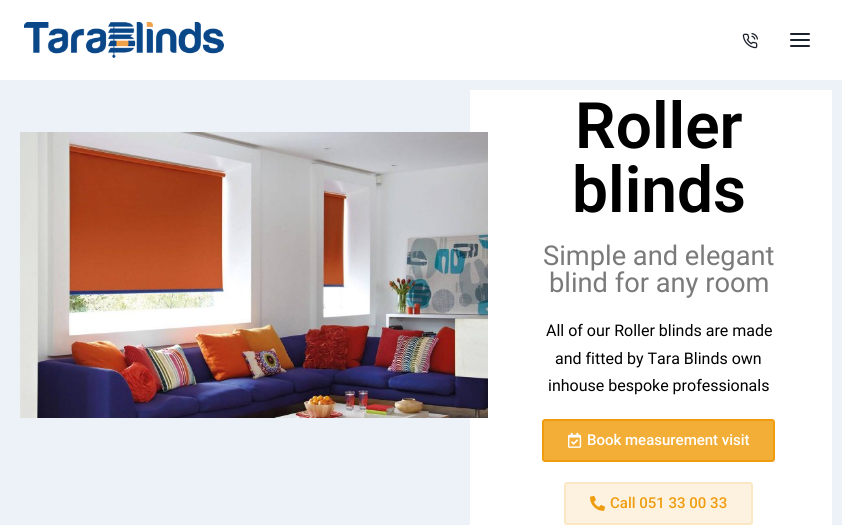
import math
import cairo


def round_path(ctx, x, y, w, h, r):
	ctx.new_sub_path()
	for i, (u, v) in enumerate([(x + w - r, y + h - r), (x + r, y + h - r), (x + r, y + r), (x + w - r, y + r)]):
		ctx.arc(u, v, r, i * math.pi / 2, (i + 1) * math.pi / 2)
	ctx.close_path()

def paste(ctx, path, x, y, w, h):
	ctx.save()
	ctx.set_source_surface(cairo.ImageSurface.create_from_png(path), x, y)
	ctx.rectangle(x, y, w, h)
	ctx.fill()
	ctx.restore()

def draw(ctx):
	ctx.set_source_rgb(1, 1, 1)
	ctx.paint()
	paste(ctx, 'media/1.png', 24, 22, 200, 36)
	paste(ctx, 'media/2.png', 742, 33, 16, 16)
	paste(ctx, 'media/3.png', 790, 33, 20, 14)
	ctx.set_source_rgb(0.929, 0.949, 0.969)
	ctx.rectangle(0, 80, 842, 445)
	ctx.fill()
	ctx.set_source_rgb(1, 1, 1)
	ctx.rectangle(470, 90, 362, 435)
	ctx.fill()
	paste(ctx, 'media/4.png', 20, 132, 468, 286)
	ctx.select_font_face('Roboto SemiBold')
	ctx.set_font_size(64)
	ctx.set_source_rgb(0, 0, 0)
	ctx.move_to(575, 148)
	ctx.show_text('Roller')
	ctx.move_to(572, 212)
	ctx.show_text('blinds')
	ctx.select_font_face('Roboto')
	ctx.set_font_size(27.25)
	ctx.set_source_rgb(0.478, 0.478, 0.478)
	ctx.move_to(543, 265)
	ctx.show_text('Simple and elegant')
	ctx.move_to(549, 292)
	ctx.show_text('blind for any room')
	ctx.set_font_size(16)
	ctx.set_source_rgb(0, 0, 0)
	for x, y, s in [
		(546, 336, 'All of our Roller blinds are made'),
		(555, 364, 'and fitted by Tara Blinds own'),
		(548, 391, 'inhouse bespoke professionals'),
	]:
		ctx.move_to(x, y)
		ctx.show_text(s)
	ctx.set_source_rgb(0.949, 0.682, 0.216)
	round_path(ctx, 543, 420, 231, 41, 2)
	ctx.fill_preserve()
	ctx.set_source_rgb(0.937, 0.616, 0.055)
	ctx.stroke()
	paste(ctx, 'media/5.png', 568, 432, 14, 16)
	ctx.select_font_face('Roboto Medium')
	ctx.set_font_size(15)
	ctx.set_source_rgb(1, 1, 1)
	ctx.move_to(587, 445)
	ctx.show_text('Book measurement visit')
	ctx.set_source_rgb(0.992, 0.949, 0.878)
	round_path(ctx, 564, 482, 189, 43, 3)
	ctx.fill()
	round_path(ctx, 565, 483, 187, 41, 2)
	ctx.set_source_rgba(0.937, 0.616, 0.055, 0.13)
	ctx.stroke()
	paste(ctx, 'media/6.png', 590, 495, 15, 16)
	ctx.set_source_rgb(0.937, 0.616, 0.055)
	ctx.move_to(610, 508)
	ctx.show_text('Call 051 33 00 33')


surface = cairo.ImageSurface(cairo.FORMAT_RGB24, 842, 525)
ctx = cairo.Context(surface)
options = cairo.FontOptions()
options.set_hint_metrics(cairo.HINT_METRICS_OFF)
options.set_hint_style(cairo.HINT_STYLE_NONE)
ctx.set_font_options(options)
ctx.set_miter_limit(4)
draw(ctx)
surface.write_to_png('image.png')
